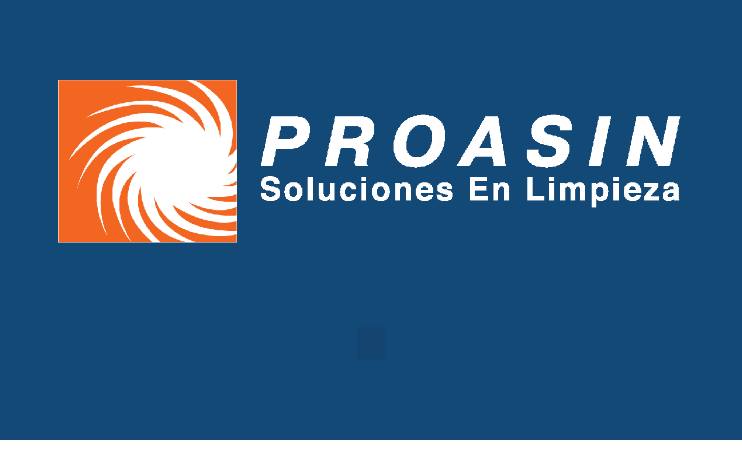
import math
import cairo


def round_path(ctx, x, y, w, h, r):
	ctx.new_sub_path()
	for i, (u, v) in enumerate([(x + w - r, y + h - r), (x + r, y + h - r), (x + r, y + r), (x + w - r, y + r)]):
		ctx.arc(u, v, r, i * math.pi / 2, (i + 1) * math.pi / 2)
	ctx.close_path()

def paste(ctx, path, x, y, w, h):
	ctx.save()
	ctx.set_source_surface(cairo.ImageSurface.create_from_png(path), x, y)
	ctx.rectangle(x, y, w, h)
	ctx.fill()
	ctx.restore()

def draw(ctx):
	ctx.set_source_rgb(1, 1, 1)
	ctx.paint()
	ctx.set_source_rgb(0.078, 0.286, 0.463)
	ctx.rectangle(0, 0, 742, 440)
	ctx.fill()
	paste(ctx, 'media/1.png', 58, 80, 623, 163)
	ctx.set_source_rgb(0.075, 0.271, 0.439)
	round_path(ctx, 357, 327, 28, 33, 3)
	ctx.fill()


surface = cairo.ImageSurface(cairo.FORMAT_RGB24, 742, 451)
ctx = cairo.Context(surface)
options = cairo.FontOptions()
options.set_hint_metrics(cairo.HINT_METRICS_OFF)
options.set_hint_style(cairo.HINT_STYLE_NONE)
ctx.set_font_options(options)
ctx.set_miter_limit(4)
draw(ctx)
surface.write_to_png('image.png')
